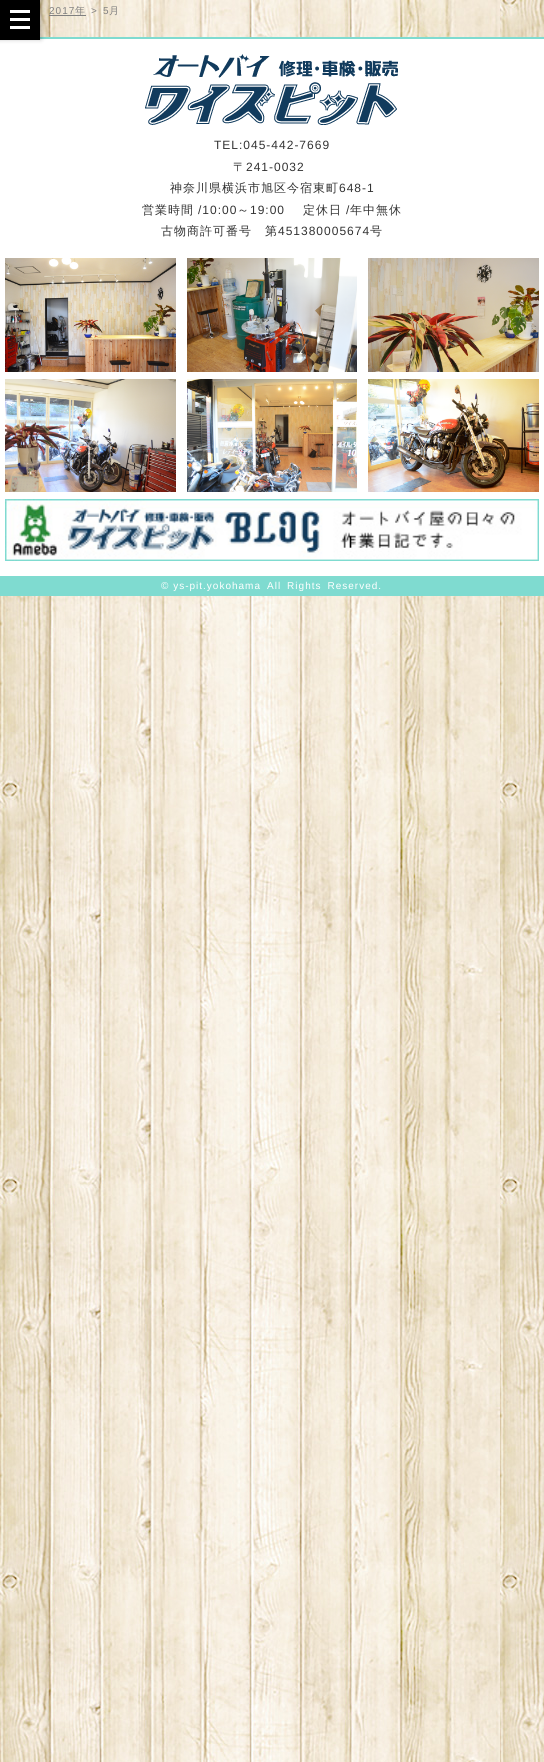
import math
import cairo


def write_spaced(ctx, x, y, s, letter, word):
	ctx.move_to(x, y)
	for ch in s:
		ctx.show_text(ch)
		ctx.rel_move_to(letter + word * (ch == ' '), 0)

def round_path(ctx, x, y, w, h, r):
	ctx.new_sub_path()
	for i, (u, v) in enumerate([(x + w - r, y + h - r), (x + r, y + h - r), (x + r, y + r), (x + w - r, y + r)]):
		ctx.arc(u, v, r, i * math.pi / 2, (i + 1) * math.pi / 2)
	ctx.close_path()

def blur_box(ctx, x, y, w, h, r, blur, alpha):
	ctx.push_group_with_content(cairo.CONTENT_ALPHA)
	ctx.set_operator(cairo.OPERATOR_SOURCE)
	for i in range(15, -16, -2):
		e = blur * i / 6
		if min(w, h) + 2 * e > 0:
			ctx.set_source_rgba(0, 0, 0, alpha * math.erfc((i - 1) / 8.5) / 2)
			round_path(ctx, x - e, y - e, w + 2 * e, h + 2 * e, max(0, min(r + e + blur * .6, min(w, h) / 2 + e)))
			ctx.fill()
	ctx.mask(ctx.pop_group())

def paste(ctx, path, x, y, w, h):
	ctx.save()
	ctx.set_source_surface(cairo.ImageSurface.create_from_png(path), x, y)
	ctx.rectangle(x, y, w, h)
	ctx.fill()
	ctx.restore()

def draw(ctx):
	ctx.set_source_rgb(1, 1, 1)
	ctx.paint()
	paste(ctx, 'media/1.png', 0, 0, 544, 1762)
	ctx.set_source_rgb(0.502, 0.502, 0.502)
	ctx.rectangle(49, 15, 37, 1)
	ctx.fill()
	ctx.set_source_rgb(1, 1, 1)
	ctx.rectangle(0, 39, 544, 537)
	ctx.fill()
	ctx.set_source_rgb(0.498, 0.859, 0.816)
	ctx.rectangle(40, 37, 504, 2)
	ctx.fill()
	ctx.set_source_rgb(0, 0, 0)
	blur_box(ctx, -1, -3, 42, 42, 0, 2.5, 0.3)
	ctx.set_source_rgb(0, 0, 0)
	ctx.rectangle(0, 0, 40, 40)
	ctx.fill()
	ctx.set_source_rgb(1, 1, 1)
	ctx.rectangle(10, 10, 20, 19)
	ctx.fill()
	ctx.set_source_rgb(0, 0, 0)
	ctx.rectangle(10, 13, 20, 5)
	ctx.rectangle(10, 21, 20, 5)
	ctx.fill()
	ctx.select_font_face('Liberation Sans')
	ctx.set_font_size(10)
	ctx.set_source_rgb(0.502, 0.502, 0.502)
	write_spaced(ctx, 49, 14, '2017', 1, 0)
	ctx.select_font_face('WenQuanYi Zen Hei Medium')
	write_spaced(ctx, 75, 14, '年', 1, 0)
	ctx.select_font_face('Liberation Sans')
	write_spaced(ctx, 91, 14, '>', 1, 0)
	write_spaced(ctx, 103, 14, '5', 1, 0)
	ctx.select_font_face('WenQuanYi Zen Hei Medium')
	write_spaced(ctx, 109, 14, '月', 1, 0)
	paste(ctx, 'media/2.png', 145, 54, 253, 71)
	ctx.select_font_face('Liberation Sans')
	ctx.set_font_size(12)
	ctx.set_source_rgb(0.196, 0.196, 0.196)
	write_spaced(ctx, 214, 149, 'TEL:045-442-7669', 1, 0)
	ctx.select_font_face('WenQuanYi Zen Hei Medium')
	write_spaced(ctx, 233, 171, '〒', 1, 0)
	ctx.select_font_face('Liberation Sans')
	write_spaced(ctx, 246, 171, '241-0032', 1, 0)
	ctx.select_font_face('WenQuanYi Zen Hei Medium')
	write_spaced(ctx, 170, 192, '神奈川県横浜市旭区今宿東町', 1, 0)
	ctx.select_font_face('Liberation Sans')
	write_spaced(ctx, 339, 192, '648-1', 1, 0)
	ctx.select_font_face('WenQuanYi Zen Hei Medium')
	write_spaced(ctx, 142, 214, '営業時間', 1, 0)
	ctx.select_font_face('Liberation Sans')
	write_spaced(ctx, 198, 214, '/10:00', 1, 0)
	ctx.select_font_face('WenQuanYi Zen Hei Medium')
	write_spaced(ctx, 237, 214, '～', 1, 0)
	ctx.select_font_face('Liberation Sans')
	write_spaced(ctx, 250, 214, '19:00', 1, 0)
	ctx.select_font_face('WenQuanYi Zen Hei Medium')
	write_spaced(ctx, 303, 214, '定休日', 1, 0)
	ctx.select_font_face('Liberation Sans')
	write_spaced(ctx, 346, 214, '/', 1, 0)
	ctx.select_font_face('WenQuanYi Zen Hei Medium')
	write_spaced(ctx, 350, 214, '年中無休', 1, 0)
	write_spaced(ctx, 161, 235, '古物商許可番号　第', 1, 0)
	ctx.select_font_face('Liberation Sans')
	write_spaced(ctx, 278, 235, '451380005674', 1, 0)
	ctx.select_font_face('WenQuanYi Zen Hei Medium')
	write_spaced(ctx, 370, 235, '号', 1, 0)
	paste(ctx, 'media/3.png', 5, 258, 171, 114)
	paste(ctx, 'media/4.png', 187, 258, 170, 114)
	paste(ctx, 'media/5.png', 368, 258, 171, 114)
	paste(ctx, 'media/6.png', 5, 379, 171, 113)
	paste(ctx, 'media/7.png', 187, 379, 170, 113)
	paste(ctx, 'media/8.png', 368, 379, 171, 113)
	paste(ctx, 'media/9.png', 5, 499, 534, 62)
	ctx.set_source_rgb(0.498, 0.859, 0.816)
	ctx.rectangle(0, 576, 544, 20)
	ctx.fill()
	ctx.select_font_face('Liberation Sans')
	ctx.set_font_size(10)
	ctx.set_source_rgb(1, 1, 1)
	write_spaced(ctx, 161, 589, '© ys-pit.yokohama', 1, 0)
	write_spaced(ctx, 267, 589, 'All Rights Reserved.', 1, 0)


surface = cairo.ImageSurface(cairo.FORMAT_RGB24, 544, 1762)
ctx = cairo.Context(surface)
options = cairo.FontOptions()
options.set_hint_metrics(cairo.HINT_METRICS_OFF)
options.set_hint_style(cairo.HINT_STYLE_NONE)
ctx.set_font_options(options)
ctx.set_miter_limit(4)
draw(ctx)
surface.write_to_png('image.png')
